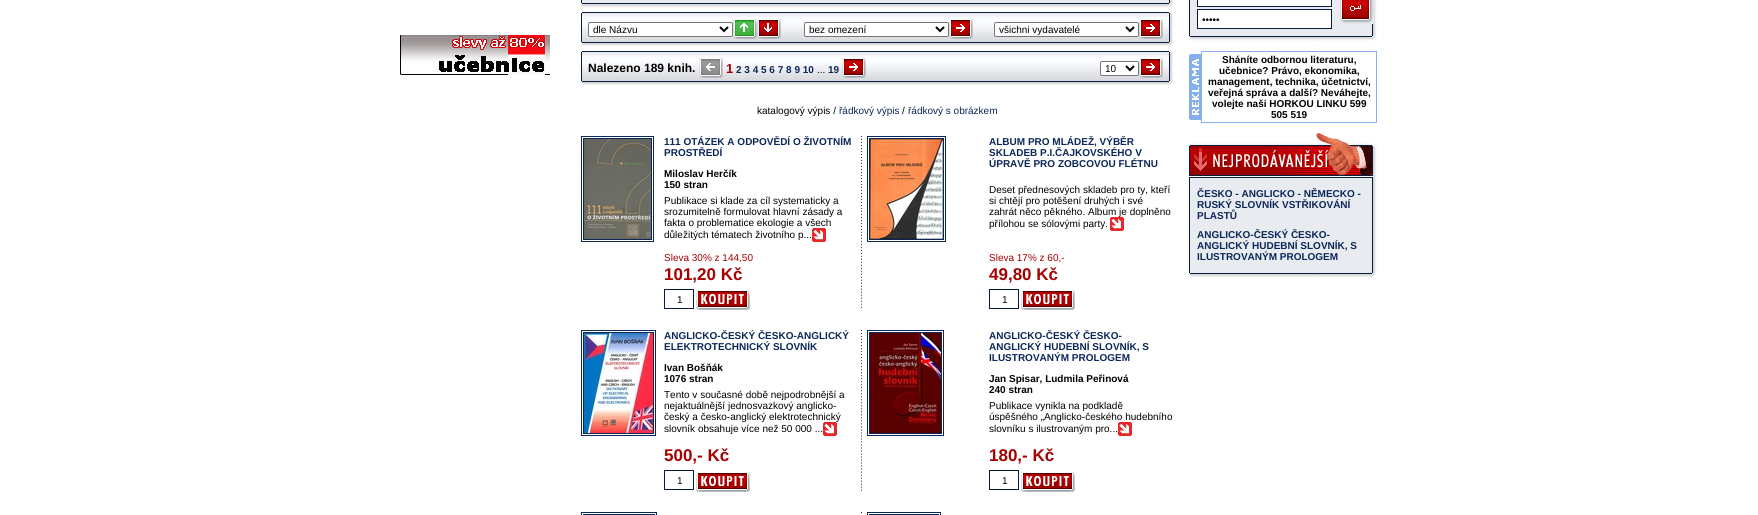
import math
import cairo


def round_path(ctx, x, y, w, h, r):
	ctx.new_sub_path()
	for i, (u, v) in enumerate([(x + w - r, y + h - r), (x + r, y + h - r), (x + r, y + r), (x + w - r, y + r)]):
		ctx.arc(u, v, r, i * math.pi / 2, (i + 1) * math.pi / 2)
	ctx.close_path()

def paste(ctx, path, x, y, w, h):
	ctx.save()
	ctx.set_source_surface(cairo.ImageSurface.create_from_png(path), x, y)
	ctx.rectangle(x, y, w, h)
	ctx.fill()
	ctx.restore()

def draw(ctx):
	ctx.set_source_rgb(1, 1, 1)
	ctx.paint()
	paste(ctx, 'media/1.png', 400, 35, 150, 40)
	paste(ctx, 'media/2.png', 581, 0, 592, 3)
	paste(ctx, 'media/3.png', 581, 3, 592, 5)
	paste(ctx, 'media/4.png', 581, 12, 592, 34)
	ctx.set_source_rgb(1, 1, 1)
	round_path(ctx, 588.5, 22.5, 144, 14, 1.5)
	ctx.fill_preserve()
	ctx.set_source_rgb(0.463, 0.463, 0.463)
	ctx.set_line_width(1)
	ctx.stroke()
	ctx.new_path()
	ctx.move_to(720, 27)
	ctx.line_to(724, 31)
	ctx.line_to(728, 27)
	ctx.set_source_rgb(0, 0, 0)
	ctx.set_line_width(2)
	ctx.stroke()
	ctx.select_font_face('Liberation Sans')
	ctx.set_font_size(10)
	ctx.move_to(593, 33)
	ctx.show_text('dle Názvu')
	paste(ctx, 'media/5.png', 733, 19, 24, 20)
	paste(ctx, 'media/6.png', 757, 19, 24, 20)
	ctx.set_source_rgb(1, 1, 1)
	round_path(ctx, 804.5, 22.5, 144, 14, 1.5)
	ctx.fill_preserve()
	ctx.set_source_rgb(0.463, 0.463, 0.463)
	ctx.set_line_width(1)
	ctx.stroke()
	ctx.new_path()
	ctx.move_to(936, 27)
	ctx.line_to(940, 31)
	ctx.line_to(944, 27)
	ctx.set_source_rgb(0, 0, 0)
	ctx.set_line_width(2)
	ctx.stroke()
	ctx.move_to(809, 33)
	ctx.show_text('bez omezení')
	paste(ctx, 'media/7.png', 949, 19, 24, 20)
	ctx.set_source_rgb(1, 1, 1)
	round_path(ctx, 994.5, 22.5, 144, 14, 1.5)
	ctx.fill_preserve()
	ctx.set_source_rgb(0.463, 0.463, 0.463)
	ctx.set_line_width(1)
	ctx.stroke()
	ctx.new_path()
	ctx.move_to(1126, 27)
	ctx.line_to(1130, 31)
	ctx.line_to(1134, 27)
	ctx.set_source_rgb(0, 0, 0)
	ctx.set_line_width(2)
	ctx.stroke()
	ctx.move_to(999, 33)
	ctx.show_text('všichni vydavatelé')
	paste(ctx, 'media/7.png', 1139, 19, 24, 20)
	paste(ctx, 'media/4.png', 581, 51, 592, 34)
	ctx.select_font_face('Liberation Sans', cairo.FONT_SLANT_NORMAL, cairo.FONT_WEIGHT_BOLD)
	ctx.set_font_size(12)
	ctx.move_to(588, 72)
	ctx.show_text('Nalezeno 189 knih.')
	paste(ctx, 'media/8.png', 699, 58, 24, 20)
	ctx.set_font_size(13)
	ctx.set_source_rgb(0.651, 0, 0)
	ctx.move_to(726, 73)
	ctx.show_text('1')
	ctx.set_font_size(10)
	ctx.set_source_rgb(0.043, 0.153, 0.345)
	ctx.move_to(736, 73)
	ctx.show_text('2 3 4 5 6 7 8 9 10')
	ctx.select_font_face('Liberation Sans')
	ctx.set_source_rgb(0, 0, 0)
	ctx.move_to(817, 73)
	ctx.show_text('...')
	ctx.select_font_face('Liberation Sans', cairo.FONT_SLANT_NORMAL, cairo.FONT_WEIGHT_BOLD)
	ctx.set_source_rgb(0.043, 0.153, 0.345)
	ctx.move_to(828, 73)
	ctx.show_text('19')
	paste(ctx, 'media/7.png', 842, 58, 24, 20)
	ctx.set_source_rgb(1, 1, 1)
	round_path(ctx, 1100.5, 61.5, 38, 14, 1.5)
	ctx.fill_preserve()
	ctx.set_source_rgb(0.463, 0.463, 0.463)
	ctx.set_line_width(1)
	ctx.stroke()
	ctx.new_path()
	ctx.move_to(1126, 66)
	ctx.line_to(1130, 70)
	ctx.line_to(1134, 66)
	ctx.set_source_rgb(0, 0, 0)
	ctx.set_line_width(2)
	ctx.stroke()
	ctx.select_font_face('Liberation Sans')
	ctx.move_to(1105, 72)
	ctx.show_text('10')
	paste(ctx, 'media/7.png', 1139, 58, 24, 20)
	ctx.move_to(757, 114)
	ctx.show_text('katalogový výpis /')
	ctx.set_source_rgb(0.043, 0.153, 0.345)
	ctx.move_to(839, 114)
	ctx.show_text('řádkový výpis')
	ctx.set_source_rgb(0, 0, 0)
	ctx.move_to(902, 114)
	ctx.show_text('/')
	ctx.set_source_rgb(0.043, 0.153, 0.345)
	ctx.move_to(908, 114)
	ctx.show_text('řádkový s obrázkem')
	ctx.rectangle(581.5, 136.5, 72, 105)
	ctx.set_line_width(1)
	ctx.stroke()
	ctx.rectangle(583.5, 138.5, 68, 101)
	ctx.stroke()
	paste(ctx, 'media/9.png', 584, 139, 67, 100)
	ctx.select_font_face('Liberation Sans', cairo.FONT_SLANT_NORMAL, cairo.FONT_WEIGHT_BOLD)
	ctx.move_to(664, 145)
	ctx.show_text('111 OTÁZEK A ODPOVĚDÍ O ŽIVOTNÍM')
	ctx.move_to(664, 156)
	ctx.show_text('PROSTŘEDÍ')
	ctx.set_source_rgb(0, 0, 0)
	ctx.move_to(664, 177)
	ctx.show_text('Miloslav Herčík')
	ctx.move_to(664, 188)
	ctx.show_text('150 stran')
	ctx.select_font_face('Liberation Sans')
	for x, y, s in [
		(664, 204, 'Publikace si klade za cíl systematicky a'),
		(664, 215, 'srozumitelně formulovat hlavní zásady a'),
		(664, 226, 'fakta o problematice ekologie a všech'),
		(664, 238, 'důležitých tématech životního p...'),
	]:
		ctx.move_to(x, y)
		ctx.show_text(s)
	paste(ctx, 'media/10.png', 812, 228, 14, 14)
	paste(ctx, 'media/11.png', 861, 136, 1, 174)
	ctx.rectangle(867.5, 136.5, 78, 105)
	ctx.set_source_rgb(0.043, 0.153, 0.345)
	ctx.stroke()
	ctx.rectangle(869.5, 138.5, 74, 101)
	ctx.stroke()
	paste(ctx, 'media/12.png', 870, 139, 73, 100)
	ctx.select_font_face('Liberation Sans', cairo.FONT_SLANT_NORMAL, cairo.FONT_WEIGHT_BOLD)
	for x, y, s in [
		(989, 145, 'ALBUM PRO MLÁDEŽ, VÝBĚR'),
		(989, 156, 'SKLADEB P.I.ČAJKOVSKÉHO V'),
		(989, 167, 'ÚPRAVĚ PRO ZOBCOVOU FLÉTNU'),
	]:
		ctx.move_to(x, y)
		ctx.show_text(s)
	ctx.select_font_face('Liberation Sans')
	ctx.set_source_rgb(0, 0, 0)
	for x, y, s in [
		(989, 193, 'Deset přednesových skladeb pro ty, kteří'),
		(989, 204, 'si chtějí pro potěšení druhých i své'),
		(989, 215, 'zahrát něco pěkného. Album je doplněno'),
		(989, 227, 'přílohou se sólovými party.'),
	]:
		ctx.move_to(x, y)
		ctx.show_text(s)
	paste(ctx, 'media/10.png', 1110, 217, 14, 14)
	ctx.set_source_rgb(0.651, 0, 0)
	ctx.move_to(664, 261)
	ctx.show_text('Sleva 30% z 144,50')
	ctx.select_font_face('Liberation Sans', cairo.FONT_SLANT_NORMAL, cairo.FONT_WEIGHT_BOLD)
	ctx.set_font_size(17)
	ctx.move_to(664, 280)
	ctx.show_text('101,20 Kč')
	ctx.rectangle(664.5, 289.5, 29, 19)
	ctx.set_source_rgb(0.031, 0.11, 0.239)
	ctx.stroke()
	ctx.select_font_face('Liberation Sans')
	ctx.set_font_size(10)
	ctx.set_source_rgb(0, 0, 0)
	ctx.move_to(677, 303)
	ctx.show_text('1')
	paste(ctx, 'media/13.png', 696, 290, 54, 20)
	ctx.set_source_rgb(0.651, 0, 0)
	ctx.move_to(989, 261)
	ctx.show_text('Sleva 17% z 60,-')
	ctx.select_font_face('Liberation Sans', cairo.FONT_SLANT_NORMAL, cairo.FONT_WEIGHT_BOLD)
	ctx.set_font_size(17)
	ctx.move_to(989, 280)
	ctx.show_text('49,80 Kč')
	ctx.rectangle(989.5, 289.5, 29, 19)
	ctx.set_source_rgb(0.031, 0.11, 0.239)
	ctx.stroke()
	ctx.select_font_face('Liberation Sans')
	ctx.set_font_size(10)
	ctx.set_source_rgb(0, 0, 0)
	ctx.move_to(1002, 303)
	ctx.show_text('1')
	paste(ctx, 'media/13.png', 1021, 290, 54, 20)
	ctx.rectangle(581.5, 330.5, 74, 105)
	ctx.set_source_rgb(0.043, 0.153, 0.345)
	ctx.stroke()
	ctx.rectangle(583.5, 332.5, 70, 101)
	ctx.stroke()
	paste(ctx, 'media/14.png', 584, 333, 69, 100)
	ctx.select_font_face('Liberation Sans', cairo.FONT_SLANT_NORMAL, cairo.FONT_WEIGHT_BOLD)
	ctx.move_to(664, 339)
	ctx.show_text('ANGLICKO-ČESKÝ ČESKO-ANGLICKÝ')
	ctx.move_to(664, 350)
	ctx.show_text('ELEKTROTECHNICKÝ SLOVNÍK')
	ctx.set_source_rgb(0, 0, 0)
	ctx.move_to(664, 371)
	ctx.show_text('Ivan Bošňák')
	ctx.move_to(664, 382)
	ctx.show_text('1076 stran')
	ctx.select_font_face('Liberation Sans')
	for x, y, s in [
		(664, 398, 'Tento v současné době nejpodrobnější a'),
		(664, 409, 'nejaktuálnější jednosvazkový anglicko-'),
		(664, 420, 'český a česko-anglický elektrotechnický'),
		(664, 432, 'slovník obsahuje více než 50 000 ...'),
	]:
		ctx.move_to(x, y)
		ctx.show_text(s)
	paste(ctx, 'media/15.png', 823, 422, 14, 14)
	paste(ctx, 'media/16.png', 861, 330, 1, 161)
	ctx.rectangle(867.5, 330.5, 76, 105)
	ctx.set_source_rgb(0.043, 0.153, 0.345)
	ctx.stroke()
	ctx.rectangle(869.5, 332.5, 72, 101)
	ctx.stroke()
	paste(ctx, 'media/17.png', 870, 333, 71, 100)
	ctx.select_font_face('Liberation Sans', cairo.FONT_SLANT_NORMAL, cairo.FONT_WEIGHT_BOLD)
	for x, y, s in [
		(989, 339, 'ANGLICKO-ČESKÝ ČESKO-'),
		(989, 350, 'ANGLICKÝ HUDEBNÍ SLOVNÍK, S'),
		(989, 361, 'ILUSTROVANÝM PROLOGEM'),
	]:
		ctx.move_to(x, y)
		ctx.show_text(s)
	ctx.set_source_rgb(0, 0, 0)
	ctx.move_to(989, 382)
	ctx.show_text('Jan Spisar, Ludmila Peřinová')
	ctx.move_to(989, 393)
	ctx.show_text('240 stran')
	ctx.select_font_face('Liberation Sans')
	for x, y, s in [
		(989, 409, 'Publikace vynikla na podkladě'),
		(989, 420, 'úspěšného „Anglicko-českého hudebního'),
		(989, 432, 'slovníku s ilustrovaným pro...'),
	]:
		ctx.move_to(x, y)
		ctx.show_text(s)
	paste(ctx, 'media/10.png', 1118, 422, 14, 14)
	ctx.select_font_face('Liberation Sans', cairo.FONT_SLANT_NORMAL, cairo.FONT_WEIGHT_BOLD)
	ctx.set_font_size(17)
	ctx.set_source_rgb(0.651, 0, 0)
	ctx.move_to(664, 461)
	ctx.show_text('500,- Kč')
	ctx.rectangle(664.5, 470.5, 29, 19)
	ctx.set_source_rgb(0.031, 0.11, 0.239)
	ctx.stroke()
	ctx.select_font_face('Liberation Sans')
	ctx.set_font_size(10)
	ctx.set_source_rgb(0, 0, 0)
	ctx.move_to(677, 484)
	ctx.show_text('1')
	paste(ctx, 'media/13.png', 696, 472, 54, 20)
	ctx.select_font_face('Liberation Sans', cairo.FONT_SLANT_NORMAL, cairo.FONT_WEIGHT_BOLD)
	ctx.set_font_size(17)
	ctx.set_source_rgb(0.651, 0, 0)
	ctx.move_to(989, 461)
	ctx.show_text('180,- Kč')
	ctx.rectangle(989.5, 470.5, 29, 19)
	ctx.set_source_rgb(0.031, 0.11, 0.239)
	ctx.stroke()
	ctx.select_font_face('Liberation Sans')
	ctx.set_font_size(10)
	ctx.set_source_rgb(0, 0, 0)
	ctx.move_to(1002, 484)
	ctx.show_text('1')
	paste(ctx, 'media/13.png', 1021, 472, 54, 20)
	ctx.rectangle(581.5, 512.5, 75, 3)
	ctx.set_source_rgb(0.043, 0.153, 0.345)
	ctx.stroke()
	ctx.rectangle(583.5, 514.5, 71, 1)
	ctx.stroke()
	ctx.set_source_rgb(0.09, 0.165, 0.286)
	ctx.rectangle(861, 512, 1, 1)
	ctx.fill()
	ctx.rectangle(867.5, 512.5, 73, 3)
	ctx.set_source_rgb(0.043, 0.153, 0.345)
	ctx.stroke()
	ctx.rectangle(869.5, 514.5, 69, 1)
	ctx.stroke()
	paste(ctx, 'media/18.png', 1189, 0, 188, 36)
	ctx.set_source_rgb(1, 1, 1)
	ctx.rectangle(1197.5, -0.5, 134, 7)
	ctx.fill_preserve()
	ctx.set_source_rgb(0.031, 0.11, 0.239)
	ctx.stroke()
	paste(ctx, 'media/19.png', 1340, 0, 34, 24)
	ctx.set_source_rgb(1, 1, 1)
	ctx.rectangle(1197.5, 9.5, 134, 19)
	ctx.fill_preserve()
	ctx.set_source_rgb(0.031, 0.11, 0.239)
	ctx.stroke()
	ctx.set_source_rgb(0, 0, 0)
	ctx.move_to(1202, 23)
	ctx.show_text('•••••')
	paste(ctx, 'media/20.png', 1189, 36, 188, 5)
	paste(ctx, 'media/21.png', 1189, 54, 12, 66)
	ctx.rectangle(1201.5, 51.5, 175, 71)
	ctx.set_source_rgb(0.522, 0.686, 0.937)
	ctx.stroke()
	ctx.select_font_face('Liberation Sans', cairo.FONT_SLANT_NORMAL, cairo.FONT_WEIGHT_BOLD)
	ctx.set_source_rgb(0, 0, 0)
	for x, y, s in [
		(1222, 63, 'Sháníte odbornou literaturu,'),
		(1219, 74, 'učebnice? Právo, ekonomika,'),
		(1208, 85, 'management, technika, účetnictví,'),
		(1208, 96, 'veřejná správa a další? Neváhejte,'),
		(1212, 107, 'volejte naši HORKOU LINKU 599'),
		(1271, 118, '505 519'),
	]:
		ctx.move_to(x, y)
		ctx.show_text(s)
	paste(ctx, 'media/22.png', 1189, 178, 188, 95)
	paste(ctx, 'media/23.png', 1189, 133, 188, 45)
	ctx.set_source_rgb(0.043, 0.153, 0.345)
	for x, y, s in [
		(1197, 197, 'ČESKO - ANGLICKO - NĚMECKO -'),
		(1197, 208, 'RUSKÝ SLOVNÍK VSTŘIKOVÁNÍ'),
		(1197, 219, 'PLASTŮ'),
		(1197, 238, 'ANGLICKO-ČESKÝ ČESKO-'),
		(1197, 249, 'ANGLICKÝ HUDEBNÍ SLOVNÍK, S'),
		(1197, 260, 'ILUSTROVANÝM PROLOGEM'),
	]:
		ctx.move_to(x, y)
		ctx.show_text(s)
	paste(ctx, 'media/20.png', 1189, 273, 188, 5)


surface = cairo.ImageSurface(cairo.FORMAT_RGB24, 1758, 515)
ctx = cairo.Context(surface)
options = cairo.FontOptions()
options.set_hint_metrics(cairo.HINT_METRICS_OFF)
options.set_hint_style(cairo.HINT_STYLE_NONE)
ctx.set_font_options(options)
ctx.set_miter_limit(4)
draw(ctx)
surface.write_to_png('image.png')
